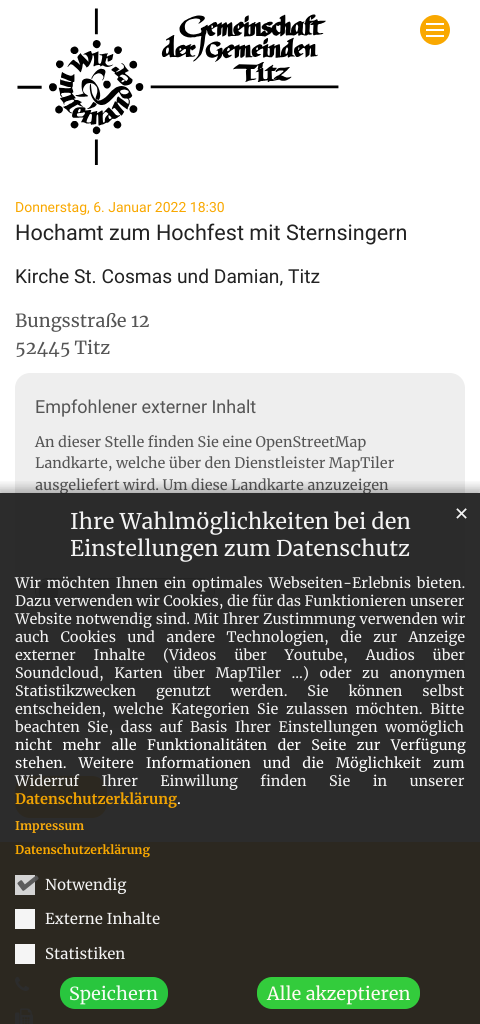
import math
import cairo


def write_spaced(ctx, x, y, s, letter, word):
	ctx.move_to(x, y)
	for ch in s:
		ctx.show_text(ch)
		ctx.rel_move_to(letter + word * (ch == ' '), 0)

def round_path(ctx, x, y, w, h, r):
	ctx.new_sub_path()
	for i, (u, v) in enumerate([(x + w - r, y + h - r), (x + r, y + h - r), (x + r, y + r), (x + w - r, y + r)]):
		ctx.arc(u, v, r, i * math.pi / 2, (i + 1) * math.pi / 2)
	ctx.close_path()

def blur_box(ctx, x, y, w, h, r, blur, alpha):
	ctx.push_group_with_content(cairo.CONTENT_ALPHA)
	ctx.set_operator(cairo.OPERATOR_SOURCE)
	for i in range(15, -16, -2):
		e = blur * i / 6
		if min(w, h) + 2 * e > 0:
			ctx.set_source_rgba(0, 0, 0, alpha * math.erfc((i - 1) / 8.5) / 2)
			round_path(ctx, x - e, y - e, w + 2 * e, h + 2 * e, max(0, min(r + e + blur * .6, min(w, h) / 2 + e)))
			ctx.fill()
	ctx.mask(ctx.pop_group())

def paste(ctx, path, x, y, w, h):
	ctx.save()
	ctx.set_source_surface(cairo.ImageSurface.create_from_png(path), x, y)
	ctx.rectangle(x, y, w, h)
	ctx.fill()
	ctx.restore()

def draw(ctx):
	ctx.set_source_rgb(1, 1, 1)
	ctx.paint()
	paste(ctx, 'media/1.png', 17, 8, 322, 157)
	ctx.set_source_rgb(0.976, 0.659, 0)
	ctx.arc(435, 30, 15, 0, 2 * math.pi)
	ctx.fill()
	ctx.set_source_rgb(1, 1, 1)
	ctx.rectangle(426, 29, 18, 2)
	ctx.rectangle(426, 23, 18, 2)
	ctx.rectangle(426, 35, 18, 2)
	ctx.fill()
	ctx.select_font_face('Roboto')
	ctx.set_font_size(14)
	ctx.set_source_rgb(0.976, 0.659, 0)
	ctx.move_to(15, 212)
	ctx.show_text('Donnerstag, 6. Januar 2022 18:30')
	ctx.set_font_size(21.6)
	ctx.set_source_rgb(0.133, 0.133, 0.133)
	ctx.move_to(15, 240)
	ctx.show_text('Hochamt zum Hochfest mit Sternsingern')
	ctx.set_font_size(19.25)
	ctx.move_to(15, 283)
	ctx.show_text('Kirche St. Cosmas und Damian, Titz')
	ctx.select_font_face('Merriweather')
	ctx.set_font_size(18)
	ctx.set_source_rgb(0.333, 0.333, 0.333)
	ctx.move_to(15, 327)
	ctx.show_text('Bungsstraße 12')
	ctx.move_to(15, 354)
	ctx.show_text('52445 Titz')
	ctx.set_source_rgb(0.933, 0.933, 0.933)
	round_path(ctx, 15, 373, 450, 355, 15)
	ctx.fill()
	ctx.select_font_face('Roboto')
	ctx.set_source_rgb(0.333, 0.333, 0.333)
	ctx.move_to(35, 413)
	ctx.show_text('Empfohlener externer Inhalt')
	ctx.select_font_face('Merriweather')
	ctx.set_font_size(14.4)
	for x, y, s in [
		(35, 447, 'An dieser Stelle finden Sie eine OpenStreetMap'),
		(35, 468, 'Landkarte, welche über den Dienstleister MapTiler'),
		(35, 490, 'ausgeliefert wird. Um diese Landkarte anzuzeigen'),
	]:
		ctx.move_to(x, y)
		ctx.show_text(s)
	round_path(ctx, 35.5, 578.5, 179, 25, 12.5)
	ctx.set_line_width(1)
	ctx.stroke()
	ctx.set_source_rgb(0.867, 0.867, 0.867)
	round_path(ctx, 36, 579, 178, 24, 12)
	ctx.fill()
	gradient = cairo.LinearGradient(75, 541, 188, 654)
	gradient.add_color_stop_rgba(0, 0, 0, 0, 0)
	gradient.add_color_stop_rgba(0.06, 0, 0, 0, 0)
	gradient.add_color_stop_rgba(0.06, 0, 0, 0, 0.1)
	gradient.add_color_stop_rgba(0.12, 0, 0, 0, 0.1)
	gradient.add_color_stop_rgba(0.12, 0, 0, 0, 0)
	gradient.add_color_stop_rgba(0.19, 0, 0, 0, 0)
	gradient.add_color_stop_rgba(0.19, 0, 0, 0, 0.1)
	gradient.add_color_stop_rgba(0.25, 0, 0, 0, 0.1)
	gradient.add_color_stop_rgba(0.25, 0, 0, 0, 0)
	gradient.add_color_stop_rgba(0.31, 0, 0, 0, 0)
	gradient.add_color_stop_rgba(0.31, 0, 0, 0, 0.1)
	gradient.add_color_stop_rgba(0.38, 0, 0, 0, 0.1)
	gradient.add_color_stop_rgba(0.38, 0, 0, 0, 0)
	gradient.add_color_stop_rgba(0.44, 0, 0, 0, 0)
	gradient.add_color_stop_rgba(0.44, 0, 0, 0, 0.1)
	gradient.add_color_stop_rgba(0.5, 0, 0, 0, 0.1)
	gradient.add_color_stop_rgba(0.5, 0, 0, 0, 0)
	gradient.add_color_stop_rgba(0.56, 0, 0, 0, 0)
	gradient.add_color_stop_rgba(0.56, 0, 0, 0, 0.1)
	gradient.add_color_stop_rgba(0.62, 0, 0, 0, 0.1)
	gradient.add_color_stop_rgba(0.62, 0, 0, 0, 0)
	gradient.add_color_stop_rgba(0.69, 0, 0, 0, 0)
	gradient.add_color_stop_rgba(0.69, 0, 0, 0, 0.1)
	gradient.add_color_stop_rgba(0.75, 0, 0, 0, 0.1)
	gradient.add_color_stop_rgba(0.75, 0, 0, 0, 0)
	gradient.add_color_stop_rgba(0.81, 0, 0, 0, 0)
	gradient.add_color_stop_rgba(0.81, 0, 0, 0, 0.1)
	gradient.add_color_stop_rgba(0.88, 0, 0, 0, 0.1)
	gradient.add_color_stop_rgba(0.88, 0, 0, 0, 0)
	gradient.add_color_stop_rgba(0.94, 0, 0, 0, 0)
	gradient.add_color_stop_rgba(0.94, 0, 0, 0, 0.1)
	gradient.add_color_stop_rgba(1, 0, 0, 0, 0.1)
	ctx.set_source(gradient)
	round_path(ctx, 36, 579, 178, 24, 12)
	ctx.fill()
	ctx.set_source_rgb(0.333, 0.333, 0.333)
	round_path(ctx, 39, 582, 19, 19, 8)
	ctx.fill()
	ctx.new_path()
	ctx.move_to(47, 582)
	ctx.curve_to(49, 582, 51, 582, 53, 582.5)
	ctx.curve_to(59.5, 585, 60, 596, 54.5, 599.5)
	ctx.curve_to(52.5, 601, 49.5, 601, 47, 601)
	ctx.curve_to(35.5, 600.5, 36.5, 582, 47, 582)
	ctx.close_path()
	ctx.fill()
	ctx.set_source_rgb(0.976, 0.659, 0)
	round_path(ctx, 15, 776, 92, 42, 15)
	ctx.fill()
	ctx.rectangle(0, 842, 480, 182)
	ctx.fill()
	paste(ctx, 'media/2.png', 15, 976, 15, 15)
	paste(ctx, 'media/3.png', 15, 1008, 18, 16)
	ctx.save()
	ctx.rectangle(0, 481, 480, 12)
	ctx.clip()
	ctx.set_source_rgb(0, 0, 0)
	blur_box(ctx, -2, 488, 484, 535, 0, 5, 0.28)
	ctx.restore()
	ctx.set_source_rgba(0.133, 0.133, 0.133, 0.95)
	ctx.rectangle(0, 493, 480, 531)
	ctx.fill()
	ctx.set_font_size(21.6)
	ctx.set_source_rgb(0.957, 0.957, 0.957)
	ctx.move_to(70, 529)
	ctx.show_text('Ihre Wahlmöglichkeiten bei den')
	ctx.move_to(70, 556)
	ctx.show_text('Einstellungen zum Datenschutz')
	ctx.select_font_face('DejaVu Sans')
	ctx.set_font_size(18)
	ctx.move_to(454, 520)
	ctx.show_text('✕')
	ctx.select_font_face('Merriweather')
	ctx.set_font_size(14.4)
	write_spaced(ctx, 15, 588, 'Wir möchten Ihnen ein optimales Webseiten-Erlebnis bieten.', 0, 2.5)
	ctx.move_to(15, 606)
	ctx.show_text('Dazu verwenden wir Cookies, die für das Funktionieren unserer')
	write_spaced(ctx, 15, 624, 'Website notwendig sind. Mit Ihrer Zustimmung verwenden wir', 0, 0.5)
	write_spaced(ctx, 15, 642, 'auch Cookies und andere Technologien, die zur Anzeige', 0, 8)
	write_spaced(ctx, 15, 660, 'externer Inhalte (Videos über Youtube, Audios über', 0, 14.5)
	write_spaced(ctx, 15, 678, 'Soundcloud, Karten über MapTiler ...) oder zu anonymen', 0, 7)
	write_spaced(ctx, 15, 696, 'Statistikzwecken genutzt werden. Sie können selbst', 0, 16.5)
	write_spaced(ctx, 15, 714, 'entscheiden, welche Kategorien Sie zulassen möchten. Bitte', 0, 4.25)
	write_spaced(ctx, 15, 732, 'beachten Sie, dass auf Basis Ihrer Einstellungen womöglich', 0, 4)
	ctx.set_source_rgb(1, 1, 1)
	write_spaced(ctx, 15, 750, 'nicht mehr alle Funktionalitäten der Seite zur Verfügung', 0, 7)
	write_spaced(ctx, 15, 768, 'stehen. Weitere Informationen und die Möglichkeit zum', 0, 8.5)
	ctx.set_source_rgb(0.957, 0.957, 0.957)
	write_spaced(ctx, 15, 786, 'Widerruf Ihrer Einwillung finden Sie in unserer', 0, 19)
	ctx.select_font_face('Merriweather', cairo.FONT_SLANT_NORMAL, cairo.FONT_WEIGHT_BOLD)
	ctx.set_source_rgb(0.937, 0.635, 0.008)
	ctx.move_to(15, 804)
	ctx.show_text('Datenschutzerklärung')
	ctx.select_font_face('Merriweather')
	ctx.set_source_rgb(1, 1, 1)
	ctx.move_to(177, 804)
	ctx.show_text('.')
	ctx.select_font_face('Merriweather', cairo.FONT_SLANT_NORMAL, cairo.FONT_WEIGHT_BOLD)
	ctx.set_font_size(12)
	ctx.set_source_rgb(0.976, 0.675, 0.051)
	ctx.move_to(15, 830)
	ctx.show_text('Impressum')
	ctx.set_source_rgb(0.976, 0.659, 0)
	ctx.move_to(15, 854)
	ctx.show_text('Datenschutzerklärung')
	ctx.set_source_rgba(0.867, 0.867, 0.867, 0.95)
	ctx.rectangle(15, 875, 20, 20)
	ctx.fill()
	paste(ctx, 'media/4.png', 17, 875, 22, 16)
	ctx.select_font_face('Merriweather')
	ctx.set_font_size(15)
	ctx.set_source_rgb(0.957, 0.957, 0.957)
	ctx.move_to(45, 890)
	ctx.show_text('Notwendig')
	ctx.set_source_rgba(1, 1, 1, 0.95)
	ctx.rectangle(15, 909, 20, 20)
	ctx.fill()
	ctx.set_source_rgb(0.957, 0.957, 0.957)
	ctx.move_to(45, 924)
	ctx.show_text('Externe Inhalte')
	ctx.set_source_rgba(1, 1, 1, 0.95)
	ctx.rectangle(15, 944, 20, 20)
	ctx.fill()
	ctx.set_source_rgb(0.957, 0.957, 0.957)
	ctx.move_to(45, 959)
	ctx.show_text('Statistiken')
	ctx.set_source_rgba(0.161, 0.808, 0.247, 0.95)
	round_path(ctx, 60, 977, 108, 32, 15)
	ctx.fill()
	ctx.set_font_size(18)
	ctx.set_source_rgb(0.957, 0.988, 0.961)
	ctx.move_to(69, 1000)
	ctx.show_text('Speichern')
	ctx.set_source_rgb(0.2, 0.8, 0.235)
	round_path(ctx, 257, 977, 163, 32, 15)
	ctx.fill()
	ctx.set_source_rgb(1, 0.984, 0.949)
	ctx.move_to(267, 1000)
	ctx.show_text('Alle akzeptieren')


surface = cairo.ImageSurface(cairo.FORMAT_RGB24, 480, 1024)
ctx = cairo.Context(surface)
options = cairo.FontOptions()
options.set_hint_metrics(cairo.HINT_METRICS_OFF)
options.set_hint_style(cairo.HINT_STYLE_NONE)
ctx.set_font_options(options)
ctx.set_miter_limit(4)
draw(ctx)
surface.write_to_png('image.png')
